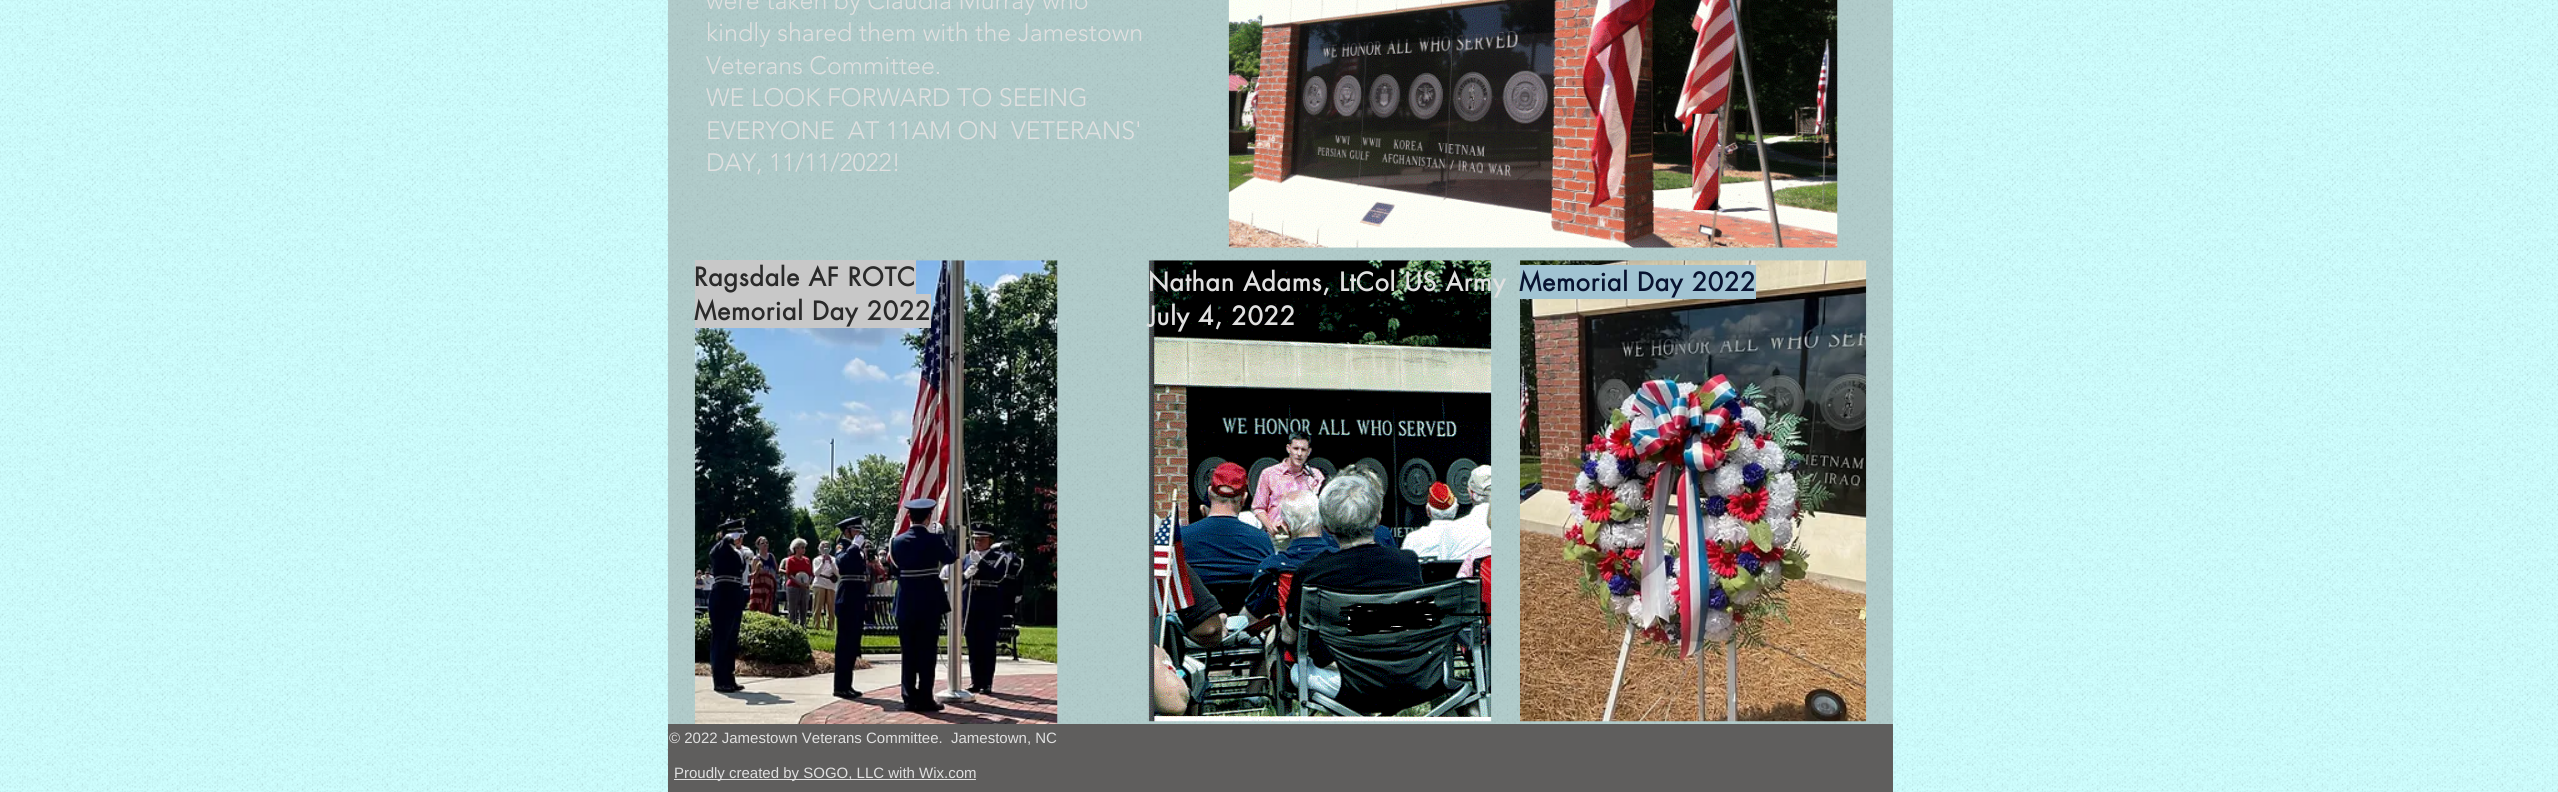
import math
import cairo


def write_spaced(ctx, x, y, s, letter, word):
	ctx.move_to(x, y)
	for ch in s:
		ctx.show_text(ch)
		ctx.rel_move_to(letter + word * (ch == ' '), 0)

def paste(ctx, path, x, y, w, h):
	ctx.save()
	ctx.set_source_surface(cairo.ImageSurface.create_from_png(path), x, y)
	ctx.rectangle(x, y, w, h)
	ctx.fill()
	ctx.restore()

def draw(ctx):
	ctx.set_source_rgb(0.812, 1, 1)
	ctx.paint()
	paste(ctx, 'media/1.png', 0, 0, 2558, 792)
	ctx.set_source_rgba(0.557, 0.557, 0.545, 0.44)
	ctx.rectangle(668, 0, 1225, 724)
	ctx.fill()
	ctx.select_font_face('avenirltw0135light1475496 Light')
	ctx.set_font_size(25)
	ctx.set_source_rgb(0.878, 0.878, 0.878)
	for x, y, s in [
		(706, 9, 'were taken by Claudia Murray who'),
		(706, 41, 'kindly shared them with the Jamestown'),
		(706, 74, 'Veterans Committee.'),
		(706, 106, 'WE LOOK FORWARD TO SEEING'),
		(706, 139, 'EVERYONE  AT 11AM ON  VETERANS\''),
		(706, 171, 'DAY, 11/11/2022!'),
	]:
		ctx.move_to(x, y)
		ctx.show_text(s)
	paste(ctx, 'media/2.png', 1228, 0, 610, 248)
	paste(ctx, 'media/3.png', 695, 260, 363, 464)
	paste(ctx, 'media/4.png', 1148, 260, 344, 462)
	paste(ctx, 'media/5.png', 1520, 260, 347, 462)
	ctx.set_source_rgb(0.784, 0.784, 0.784)
	ctx.rectangle(695, 260, 221, 34)
	ctx.fill()
	ctx.select_font_face('futura', cairo.FONT_SLANT_NORMAL, cairo.FONT_WEIGHT_BOLD)
	ctx.set_source_rgb(0.165, 0.165, 0.165)
	write_spaced(ctx, 694, 286, 'Ragsdale AF ROTC', 0.75, 0)
	ctx.set_source_rgb(0.784, 0.784, 0.784)
	ctx.rectangle(695, 294, 236, 34)
	ctx.fill()
	ctx.set_source_rgb(0.165, 0.165, 0.165)
	write_spaced(ctx, 694, 320, 'Memorial Day 2022', 0.75, 0)
	ctx.set_source_rgb(0.878, 0.878, 0.878)
	write_spaced(ctx, 1148, 291, 'Nathan Adams, LtCol US Army', 0.75, 0)
	write_spaced(ctx, 1148, 325, 'July 4, 2022', 0.75, 0)
	ctx.set_source_rgb(0.631, 0.765, 0.824)
	ctx.rectangle(1520, 265, 236, 34)
	ctx.fill()
	ctx.set_source_rgb(0.035, 0.071, 0.188)
	write_spaced(ctx, 1519, 291, 'Memorial Day 2022', 0.75, 0)
	ctx.set_source_rgb(0.373, 0.369, 0.365)
	ctx.rectangle(668, 724, 1225, 68)
	ctx.fill()
	ctx.select_font_face('Liberation Sans')
	ctx.set_font_size(15)
	ctx.set_source_rgb(0.878, 0.878, 0.878)
	ctx.move_to(669, 743)
	ctx.show_text('© 2022 Jamestown Veterans Committee.  Jamestown, NC')
	ctx.rectangle(674, 779, 302, 1)
	ctx.fill()
	ctx.move_to(674, 778)
	ctx.show_text('Proudly created by SOGO, LLC with Wix.com')


surface = cairo.ImageSurface(cairo.FORMAT_RGB24, 2558, 792)
ctx = cairo.Context(surface)
options = cairo.FontOptions()
options.set_hint_metrics(cairo.HINT_METRICS_OFF)
options.set_hint_style(cairo.HINT_STYLE_NONE)
ctx.set_font_options(options)
ctx.set_miter_limit(4)
draw(ctx)
surface.write_to_png('image.png')
